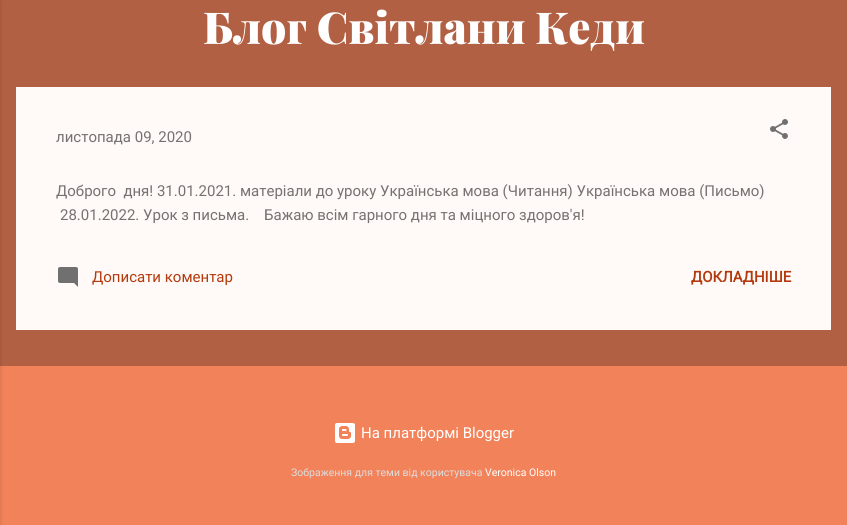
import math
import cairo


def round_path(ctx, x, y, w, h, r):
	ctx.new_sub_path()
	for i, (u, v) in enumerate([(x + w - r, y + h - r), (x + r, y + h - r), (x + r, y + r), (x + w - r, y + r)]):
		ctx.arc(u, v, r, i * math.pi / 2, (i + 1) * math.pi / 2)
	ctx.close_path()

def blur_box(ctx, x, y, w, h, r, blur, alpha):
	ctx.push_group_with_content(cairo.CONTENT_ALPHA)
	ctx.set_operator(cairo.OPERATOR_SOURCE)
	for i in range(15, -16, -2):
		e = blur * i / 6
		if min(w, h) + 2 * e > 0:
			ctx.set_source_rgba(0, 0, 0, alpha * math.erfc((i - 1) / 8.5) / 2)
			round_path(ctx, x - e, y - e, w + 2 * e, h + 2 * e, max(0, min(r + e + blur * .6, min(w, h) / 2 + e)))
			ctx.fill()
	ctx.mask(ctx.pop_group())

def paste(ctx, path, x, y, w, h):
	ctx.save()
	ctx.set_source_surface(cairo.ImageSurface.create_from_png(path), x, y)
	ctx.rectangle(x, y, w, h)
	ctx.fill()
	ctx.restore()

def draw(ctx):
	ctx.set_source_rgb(0.949, 0.51, 0.353)
	ctx.paint()
	ctx.set_source_rgb(0.698, 0.376, 0.263)
	ctx.rectangle(0, 0, 847, 366)
	ctx.fill()
	ctx.set_source_rgb(0, 0, 0)
	blur_box(ctx, -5, 1, 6, 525, 0, 1.5, 0.1)
	ctx.select_font_face('Playfair Display Black')
	ctx.set_font_size(44)
	ctx.set_source_rgb(1, 1, 1)
	ctx.move_to(203, 44)
	ctx.show_text('Блог Світлани Кеди')
	ctx.set_source_rgb(1, 0.973, 0.965)
	ctx.rectangle(16, 87, 815, 243)
	ctx.fill()
	ctx.select_font_face('Roboto')
	ctx.set_font_size(15)
	ctx.set_source_rgb(0.459, 0.447, 0.443)
	ctx.move_to(56, 142)
	ctx.show_text('листопада 09, 2020')
	paste(ctx, 'media/1.png', 770, 119, 18, 20)
	ctx.move_to(56, 196)
	ctx.show_text('Доброго  дня! 31.01.2021. матеріали до уроку Українська мова (Читання) Українська мова (Письмо)')
	ctx.move_to(60, 220)
	ctx.show_text('28.01.2022. Урок з письма.    Бажаю всім гарного дня та міцного здоров\'я!')
	paste(ctx, 'media/2.png', 58, 267, 20, 20)
	ctx.set_source_rgb(0.702, 0.227, 0.051)
	ctx.move_to(92, 282)
	ctx.show_text('Дописати коментар')
	ctx.select_font_face('Roboto', cairo.FONT_SLANT_NORMAL, cairo.FONT_WEIGHT_BOLD)
	ctx.move_to(691, 282)
	ctx.show_text('ДОКЛАДНІШЕ')
	paste(ctx, 'media/3.png', 335, 423, 20, 20)
	ctx.select_font_face('Roboto')
	ctx.set_source_rgb(1, 1, 1)
	ctx.move_to(361, 438)
	ctx.show_text('На платформі Blogger')
	ctx.set_font_size(10.5)
	ctx.set_source_rgb(0.867, 0.867, 0.867)
	ctx.move_to(291, 476)
	ctx.show_text('Зображення для теми від користувача')
	ctx.set_source_rgb(1, 1, 1)
	ctx.move_to(485, 476)
	ctx.show_text('Veronica Olson')


surface = cairo.ImageSurface(cairo.FORMAT_RGB24, 847, 525)
ctx = cairo.Context(surface)
options = cairo.FontOptions()
options.set_hint_metrics(cairo.HINT_METRICS_OFF)
options.set_hint_style(cairo.HINT_STYLE_NONE)
ctx.set_font_options(options)
ctx.set_miter_limit(4)
draw(ctx)
surface.write_to_png('image.png')
